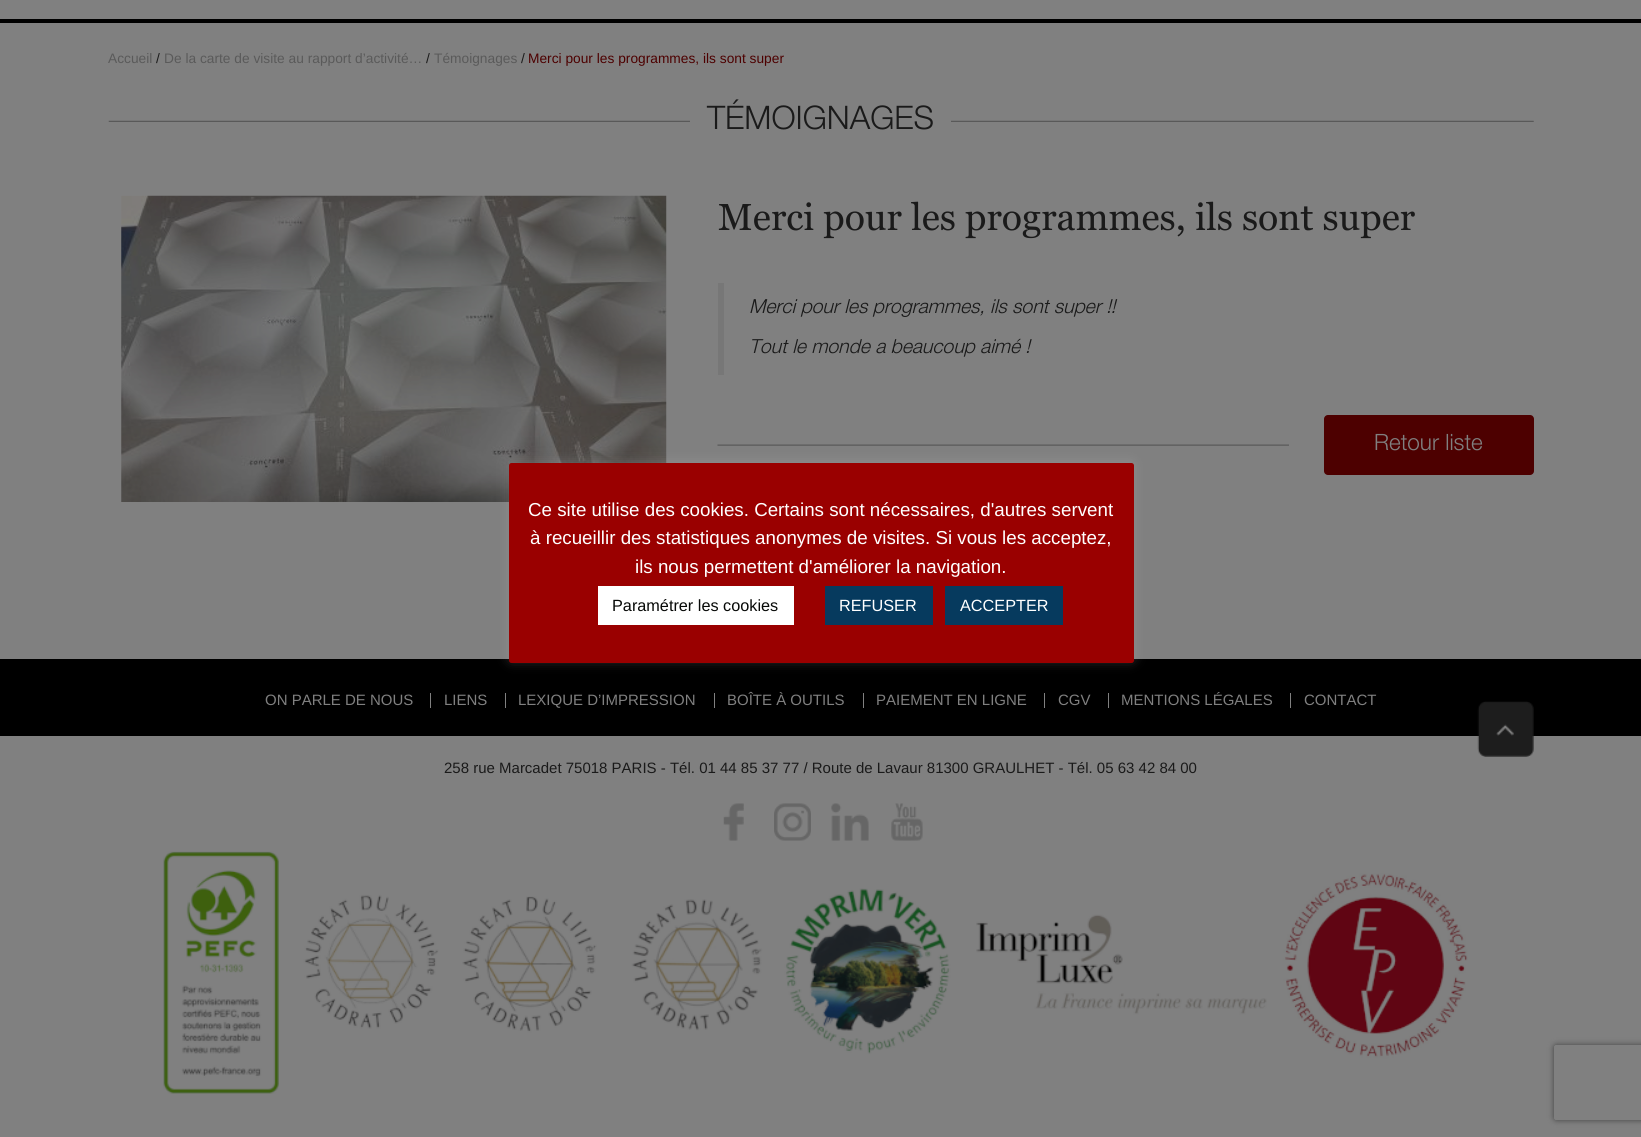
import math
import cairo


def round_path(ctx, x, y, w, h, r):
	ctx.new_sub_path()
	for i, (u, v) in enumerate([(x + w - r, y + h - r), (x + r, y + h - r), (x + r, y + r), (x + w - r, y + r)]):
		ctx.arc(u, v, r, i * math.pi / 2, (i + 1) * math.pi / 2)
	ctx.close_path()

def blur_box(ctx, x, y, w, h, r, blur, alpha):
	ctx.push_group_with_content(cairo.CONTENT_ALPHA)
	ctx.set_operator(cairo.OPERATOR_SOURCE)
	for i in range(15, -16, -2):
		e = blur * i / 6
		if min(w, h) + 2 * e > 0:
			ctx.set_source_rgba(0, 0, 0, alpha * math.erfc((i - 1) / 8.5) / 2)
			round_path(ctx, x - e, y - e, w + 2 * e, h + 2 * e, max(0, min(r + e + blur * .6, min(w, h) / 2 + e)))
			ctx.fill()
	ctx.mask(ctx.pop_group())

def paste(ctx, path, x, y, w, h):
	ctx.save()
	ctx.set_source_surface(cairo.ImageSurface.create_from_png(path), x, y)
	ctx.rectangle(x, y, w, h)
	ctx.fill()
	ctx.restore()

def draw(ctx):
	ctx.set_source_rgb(0.502, 0.502, 0.502)
	ctx.paint()
	ctx.set_source_rgb(0, 0, 0)
	ctx.rectangle(0, 19, 1641, 4)
	ctx.fill()
	ctx.select_font_face('Liberation Sans')
	ctx.set_font_size(13.75)
	ctx.set_source_rgb(0.353, 0.353, 0.353)
	ctx.move_to(108, 63)
	ctx.show_text('Accueil')
	ctx.set_source_rgb(0.102, 0.102, 0.102)
	ctx.move_to(156, 63)
	ctx.show_text('/')
	ctx.set_source_rgb(0.353, 0.353, 0.353)
	ctx.move_to(164, 63)
	ctx.show_text('De la carte de visite au rapport d’activité…')
	ctx.set_source_rgb(0.102, 0.102, 0.102)
	ctx.move_to(426, 63)
	ctx.show_text('/')
	ctx.set_source_rgb(0.353, 0.353, 0.353)
	ctx.move_to(434, 63)
	ctx.show_text('Témoignages')
	ctx.set_source_rgb(0.102, 0.102, 0.102)
	ctx.move_to(521, 63)
	ctx.show_text('/')
	ctx.set_source_rgb(0.302, 0, 0)
	ctx.move_to(528, 63)
	ctx.show_text('Merci pour les programmes, ils sont super')
	paste(ctx, 'media/1.png', 108, 120, 1426, 2)
	ctx.set_source_rgb(0.502, 0.502, 0.502)
	ctx.rectangle(690, 120, 261, 2)
	ctx.fill()
	ctx.select_font_face('Helvetica Neue Light')
	ctx.set_font_size(32.5)
	ctx.set_source_rgb(0.102, 0.102, 0.102)
	ctx.move_to(707, 129)
	ctx.show_text('TÉMOIGNAGES')
	paste(ctx, 'media/2.png', 121, 195, 546, 307)
	ctx.select_font_face('Georgia')
	ctx.set_font_size(37.5)
	ctx.move_to(718, 230)
	ctx.show_text('Merci pour les programmes, ils sont super')
	ctx.set_source_rgb(0.467, 0.467, 0.467)
	ctx.rectangle(718, 283, 6, 92)
	ctx.fill()
	ctx.select_font_face('Helvetica Neue Light', cairo.FONT_SLANT_ITALIC)
	ctx.set_font_size(19.4)
	ctx.set_source_rgb(0.102, 0.102, 0.102)
	ctx.move_to(749, 313)
	ctx.show_text('Merci pour les programmes, ils sont super !!')
	ctx.move_to(749, 353)
	ctx.show_text('Tout le monde a beaucoup aimé !')
	paste(ctx, 'media/3.png', 717, 444, 572, 2)
	ctx.set_source_rgb(0.302, 0, 0)
	round_path(ctx, 1324, 415, 210, 60, 4)
	ctx.fill()
	ctx.select_font_face('Helvetica Neue Light')
	ctx.set_font_size(22.5)
	ctx.set_source_rgb(0.502, 0.502, 0.502)
	ctx.move_to(1374, 450)
	ctx.show_text('Retour liste')
	ctx.set_source_rgb(0, 0, 0)
	ctx.rectangle(0, 659, 1641, 77)
	ctx.fill()
	ctx.select_font_face('Liberation Sans')
	ctx.set_font_size(15)
	ctx.set_source_rgb(0.502, 0.502, 0.502)
	ctx.move_to(265, 705)
	ctx.show_text('ON PARLE DE NOUS')
	ctx.rectangle(430, 693, 1, 15)
	ctx.fill()
	ctx.move_to(444, 705)
	ctx.show_text('LIENS')
	ctx.rectangle(505, 693, 1, 15)
	ctx.fill()
	ctx.move_to(518, 705)
	ctx.show_text('LEXIQUE D’IMPRESSION')
	ctx.rectangle(714, 693, 1, 15)
	ctx.fill()
	ctx.move_to(727, 705)
	ctx.show_text('BOÎTE À OUTILS')
	ctx.rectangle(863, 693, 1, 15)
	ctx.fill()
	ctx.move_to(876, 705)
	ctx.show_text('PAIEMENT EN LIGNE')
	ctx.rectangle(1044, 693, 1, 15)
	ctx.fill()
	ctx.move_to(1058, 705)
	ctx.show_text('CGV')
	ctx.rectangle(1108, 693, 1, 15)
	ctx.fill()
	ctx.move_to(1121, 705)
	ctx.show_text('MENTIONS LÉGALES')
	ctx.rectangle(1290, 693, 1, 15)
	ctx.fill()
	ctx.move_to(1304, 705)
	ctx.show_text('CONTACT')
	paste(ctx, 'media/4.png', 1477, 701, 57, 56)
	ctx.set_source_rgb(0.102, 0.102, 0.102)
	ctx.move_to(444, 773)
	ctx.show_text('258 rue Marcadet 75018 PARIS - Tél. 01 44 85 37 77 / Route de Lavaur 81300 GRAULHET - Tél. 05 63 42 84 00')
	paste(ctx, 'media/5.png', 723, 803, 21, 38)
	paste(ctx, 'media/6.png', 774, 803, 37, 38)
	paste(ctx, 'media/7.png', 831, 803, 38, 38)
	paste(ctx, 'media/8.png', 891, 803, 32, 38)
	paste(ctx, 'media/9.png', 163, 851, 1305, 243)
	ctx.set_source_rgb(0.675, 0.671, 0.671)
	blur_box(ctx, 509, 461, 625, 200, 2.5, 6, 0.3)
	ctx.set_source_rgb(0.604, 0, 0)
	round_path(ctx, 509, 463, 625, 200, 2.5)
	ctx.fill()
	ctx.set_font_size(18.75)
	ctx.set_source_rgb(1, 1, 1)
	for x, y, s in [
		(528, 516, 'Ce site utilise des cookies. Certains sont nécessaires, d\'autres servent'),
		(530, 544, 'à recueillir des statistiques anonymes de visites. Si vous les acceptez,'),
		(635, 573, 'ils nous permettent d\'améliorer la navigation.'),
	]:
		ctx.move_to(x, y)
		ctx.show_text(s)
	ctx.rectangle(598, 586, 196, 39)
	ctx.fill()
	ctx.set_font_size(16.25)
	ctx.set_source_rgb(0.031, 0.039, 0.031)
	ctx.move_to(612, 611)
	ctx.show_text('Paramétrer les cookies')
	ctx.set_source_rgb(0.027, 0.227, 0.369)
	ctx.rectangle(825, 586, 108, 39)
	ctx.fill()
	ctx.set_source_rgb(1, 1, 1)
	ctx.move_to(839, 611)
	ctx.show_text('REFUSER')
	ctx.set_source_rgb(0.027, 0.227, 0.369)
	ctx.rectangle(945, 586, 118, 39)
	ctx.fill()
	ctx.set_source_rgb(1, 1, 1)
	ctx.move_to(960, 611)
	ctx.show_text('ACCEPTER')
	ctx.save()
	ctx.set_fill_rule(cairo.FILL_RULE_EVEN_ODD)
	ctx.new_path()
	ctx.move_to(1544, 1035)
	ctx.line_to(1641, 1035)
	ctx.line_to(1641, 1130)
	ctx.line_to(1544, 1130)
	ctx.close_path()
	ctx.move_to(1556.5, 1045)
	ctx.line_to(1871.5, 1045)
	ctx.curve_to(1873, 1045, 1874, 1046, 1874, 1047.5)
	ctx.line_to(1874, 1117.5)
	ctx.curve_to(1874, 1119, 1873, 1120, 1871.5, 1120)
	ctx.line_to(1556.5, 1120)
	ctx.curve_to(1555, 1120, 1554, 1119, 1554, 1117.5)
	ctx.line_to(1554, 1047.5)
	ctx.curve_to(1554, 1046, 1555, 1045, 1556.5, 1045)
	ctx.close_path()
	ctx.clip()
	ctx.set_source_rgb(0.251, 0.251, 0.251)
	blur_box(ctx, 1554, 1045, 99, 75, 2.5, 3, 1)
	ctx.restore()


surface = cairo.ImageSurface(cairo.FORMAT_RGB24, 1641, 1137)
ctx = cairo.Context(surface)
options = cairo.FontOptions()
options.set_hint_metrics(cairo.HINT_METRICS_OFF)
options.set_hint_style(cairo.HINT_STYLE_NONE)
ctx.set_font_options(options)
ctx.set_miter_limit(4)
draw(ctx)
surface.write_to_png('image.png')
